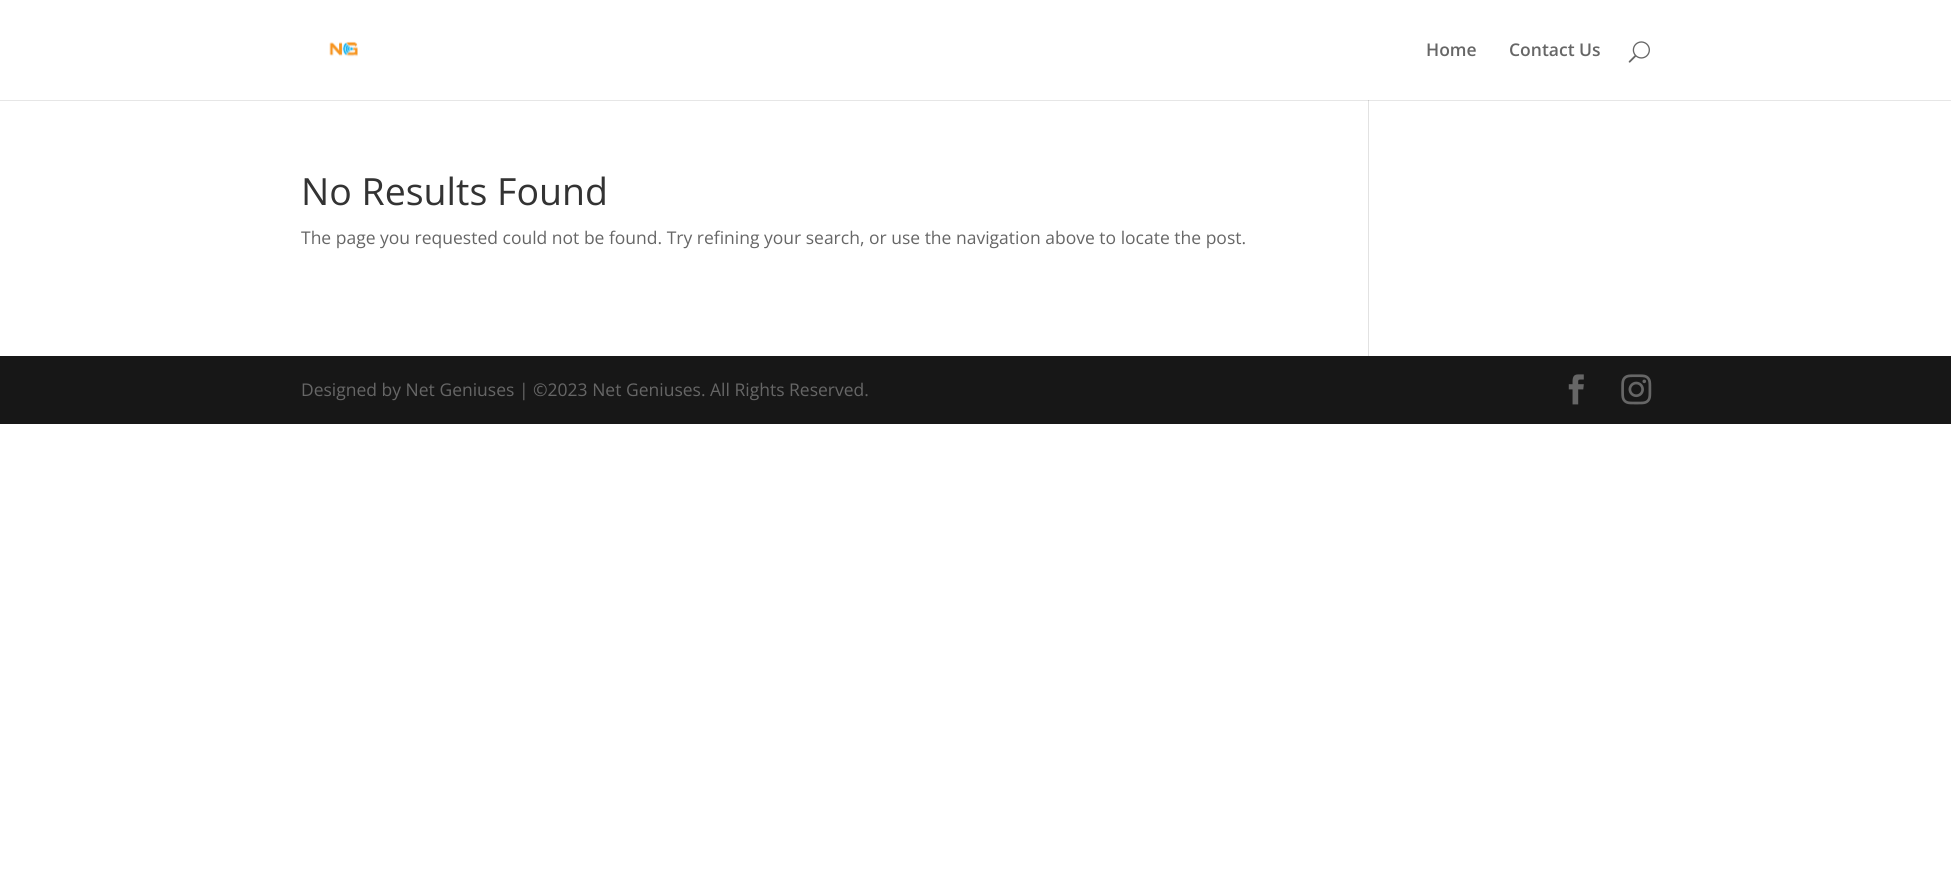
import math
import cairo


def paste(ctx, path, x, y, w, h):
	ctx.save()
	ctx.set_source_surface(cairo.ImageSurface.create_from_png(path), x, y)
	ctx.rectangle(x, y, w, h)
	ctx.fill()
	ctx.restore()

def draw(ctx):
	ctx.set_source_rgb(1, 1, 1)
	ctx.paint()
	ctx.set_source_rgb(0.902, 0.902, 0.902)
	ctx.rectangle(0, 100, 1951, 1)
	ctx.fill()
	paste(ctx, 'media/1.png', 329, 41, 29, 16)
	ctx.select_font_face('Open Sans SemiBold')
	ctx.set_font_size(17.5)
	ctx.set_source_rgb(0.4, 0.4, 0.4)
	ctx.move_to(1426, 56)
	ctx.show_text('Home')
	ctx.move_to(1509, 56)
	ctx.show_text('Contact Us')
	paste(ctx, 'media/2.png', 1628, 41, 22, 22)
	ctx.select_font_face('Open Sans')
	ctx.set_font_size(37.5)
	ctx.set_source_rgb(0.2, 0.2, 0.2)
	ctx.move_to(301, 205)
	ctx.show_text('No Results Found')
	ctx.set_font_size(17.5)
	ctx.set_source_rgb(0.4, 0.4, 0.4)
	ctx.move_to(301, 244)
	ctx.show_text('The page you requested could not be found. Try refining your search, or use the navigation above to locate the post.')
	ctx.set_source_rgb(0.886, 0.886, 0.886)
	ctx.rectangle(1368, 100, 1, 256)
	ctx.fill()
	ctx.set_source_rgb(0.796, 0.796, 0.796)
	ctx.rectangle(1368, 100, 1, 1)
	ctx.fill()
	ctx.set_source_rgb(0.09, 0.09, 0.09)
	ctx.rectangle(0, 356, 1951, 68)
	ctx.fill()
	ctx.set_source_rgb(0.4, 0.4, 0.4)
	ctx.move_to(301, 396)
	ctx.show_text('Designed by Net Geniuses | ©2023 Net Geniuses. All Rights Reserved.')
	paste(ctx, 'media/3.png', 1568, 374, 16, 31)
	paste(ctx, 'media/4.png', 1621, 374, 31, 31)


surface = cairo.ImageSurface(cairo.FORMAT_RGB24, 1951, 872)
ctx = cairo.Context(surface)
options = cairo.FontOptions()
options.set_hint_metrics(cairo.HINT_METRICS_OFF)
options.set_hint_style(cairo.HINT_STYLE_NONE)
ctx.set_font_options(options)
ctx.set_miter_limit(4)
draw(ctx)
surface.write_to_png('image.png')
